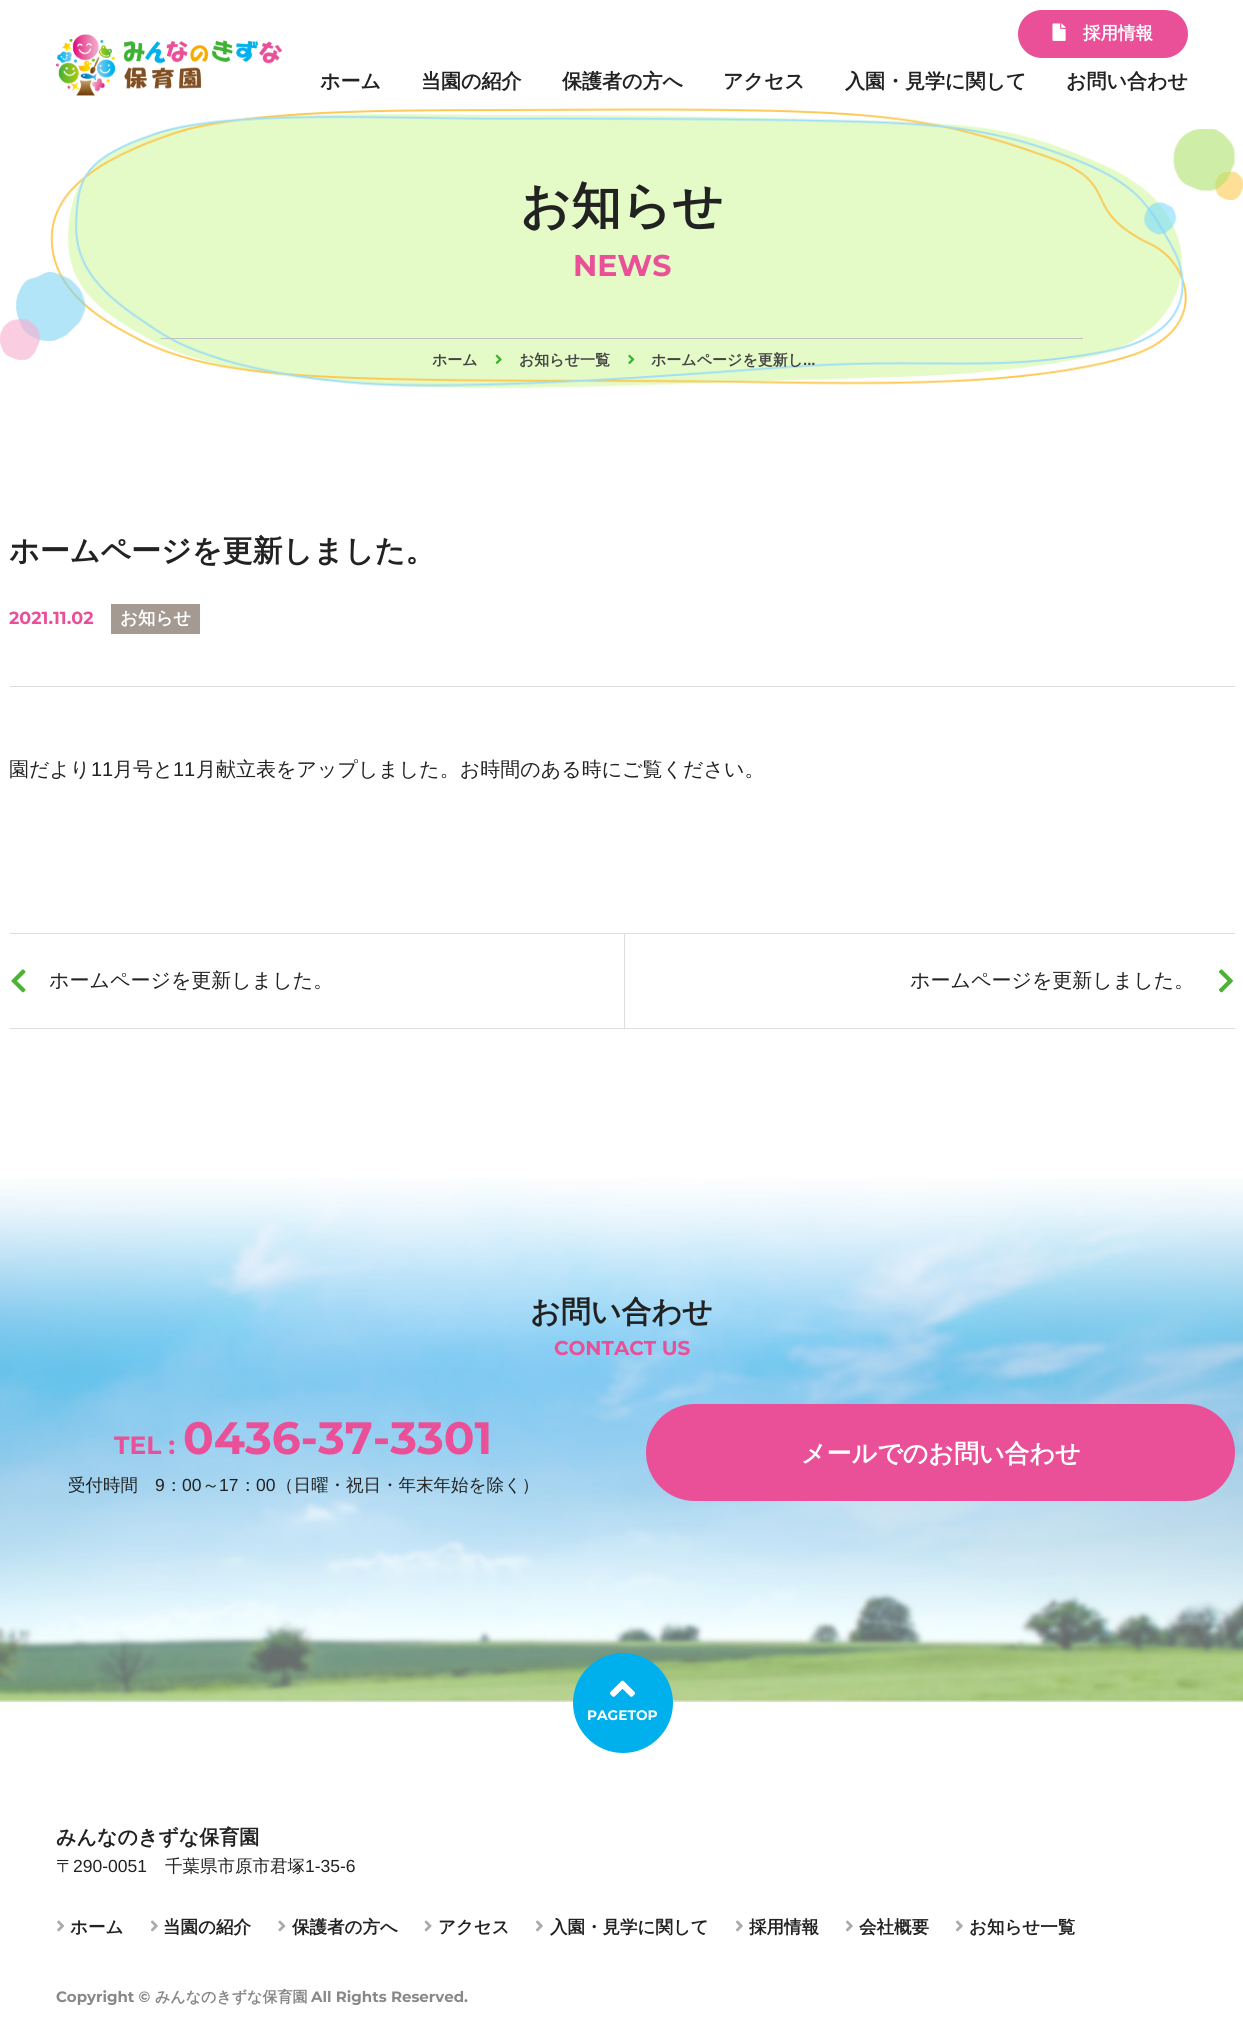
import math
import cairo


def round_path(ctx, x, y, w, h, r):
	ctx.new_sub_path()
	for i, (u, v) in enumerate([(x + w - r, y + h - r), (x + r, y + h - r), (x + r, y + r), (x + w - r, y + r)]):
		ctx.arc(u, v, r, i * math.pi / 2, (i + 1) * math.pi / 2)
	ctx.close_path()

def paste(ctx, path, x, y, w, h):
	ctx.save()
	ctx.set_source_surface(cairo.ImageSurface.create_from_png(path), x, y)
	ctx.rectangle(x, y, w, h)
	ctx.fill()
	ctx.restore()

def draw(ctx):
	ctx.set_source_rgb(1, 1, 1)
	ctx.paint()
	paste(ctx, 'media/1.png', 56, 34, 227, 62)
	ctx.set_source_rgb(0.914, 0.314, 0.596)
	round_path(ctx, 1018, 10, 170, 48, 24)
	ctx.fill()
	paste(ctx, 'media/2.png', 1052, 23, 14, 18)
	ctx.select_font_face('WenQuanYi Zen Hei', cairo.FONT_SLANT_NORMAL, cairo.FONT_WEIGHT_BOLD)
	ctx.set_font_size(17.5)
	ctx.set_source_rgb(1, 1, 1)
	ctx.move_to(1083, 39)
	ctx.show_text('採用情報')
	ctx.set_font_size(20)
	ctx.set_source_rgb(0.133, 0.133, 0.133)
	for x, y, s in [
		(320, 88, 'ホーム'),
		(421, 88, '当園の紹介'),
		(562, 88, '保護者の方へ'),
		(723, 88, 'アクセス'),
		(845, 88, '入園・見学に関して'),
		(1066, 88, 'お問い合わせ'),
	]:
		ctx.move_to(x, y)
		ctx.show_text(s)
	paste(ctx, 'media/3.png', 0, 108, 1243, 281)
	ctx.set_font_size(50)
	ctx.move_to(520, 223)
	ctx.show_text('お知らせ')
	ctx.select_font_face('Montserrat', cairo.FONT_SLANT_NORMAL, cairo.FONT_WEIGHT_BOLD)
	ctx.set_font_size(30)
	ctx.set_source_rgb(0.914, 0.314, 0.596)
	ctx.move_to(573, 276)
	ctx.show_text('NEWS')
	ctx.set_source_rgb(0.753, 0.769, 0.753)
	ctx.rectangle(161, 338, 922, 1)
	ctx.fill()
	ctx.select_font_face('WenQuanYi Zen Hei', cairo.FONT_SLANT_NORMAL, cairo.FONT_WEIGHT_BOLD)
	ctx.set_font_size(15)
	ctx.set_source_rgb(0.267, 0.267, 0.267)
	ctx.move_to(432, 365)
	ctx.show_text('ホーム')
	paste(ctx, 'media/4.png', 495, 354, 7, 10)
	ctx.move_to(519, 365)
	ctx.show_text('お知らせ一覧')
	paste(ctx, 'media/5.png', 628, 354, 7, 10)
	ctx.move_to(651, 365)
	ctx.show_text('ホームページを更新し')
	ctx.select_font_face('Liberation Sans', cairo.FONT_SLANT_NORMAL, cairo.FONT_WEIGHT_BOLD)
	ctx.move_to(803, 365)
	ctx.show_text('...')
	ctx.select_font_face('WenQuanYi Zen Hei', cairo.FONT_SLANT_NORMAL, cairo.FONT_WEIGHT_BOLD)
	ctx.set_font_size(30)
	ctx.set_source_rgb(0.133, 0.133, 0.133)
	ctx.move_to(9, 561)
	ctx.show_text('ホームページを更新しました。')
	ctx.set_source_rgb(0.867, 0.867, 0.867)
	ctx.rectangle(10, 686, 1225, 1)
	ctx.fill()
	ctx.select_font_face('Montserrat', cairo.FONT_SLANT_NORMAL, cairo.FONT_WEIGHT_BOLD)
	ctx.set_font_size(17.5)
	ctx.set_source_rgb(0.914, 0.314, 0.596)
	ctx.move_to(9, 624)
	ctx.show_text('2021.11.02')
	ctx.set_source_rgb(0.643, 0.604, 0.569)
	ctx.rectangle(111, 604, 89, 30)
	ctx.fill()
	ctx.select_font_face('WenQuanYi Zen Hei', cairo.FONT_SLANT_NORMAL, cairo.FONT_WEIGHT_BOLD)
	ctx.set_source_rgb(1, 1, 1)
	ctx.move_to(120, 624)
	ctx.show_text('お知らせ')
	ctx.select_font_face('WenQuanYi Zen Hei Medium')
	ctx.set_font_size(20)
	ctx.set_source_rgb(0.133, 0.133, 0.133)
	ctx.move_to(9, 776)
	ctx.show_text('園だより')
	ctx.select_font_face('Liberation Sans')
	ctx.move_to(91, 776)
	ctx.show_text('11')
	ctx.select_font_face('WenQuanYi Zen Hei Medium')
	ctx.move_to(113, 776)
	ctx.show_text('月号と')
	ctx.select_font_face('Liberation Sans')
	ctx.move_to(173, 776)
	ctx.show_text('11')
	ctx.select_font_face('WenQuanYi Zen Hei Medium')
	ctx.move_to(196, 776)
	ctx.show_text('月献立表をアップしました。お時間のある時にご覧ください。')
	ctx.set_source_rgb(0.867, 0.867, 0.867)
	ctx.rectangle(10, 933, 1225, 1)
	ctx.fill()
	ctx.rectangle(10, 1028, 1225, 1)
	ctx.fill()
	paste(ctx, 'media/6.png', 11, 969, 15, 24)
	ctx.set_source_rgb(0.133, 0.133, 0.133)
	ctx.move_to(49, 987)
	ctx.show_text('ホームページを更新しました。')
	ctx.set_source_rgb(0.867, 0.867, 0.867)
	ctx.rectangle(624, 934, 1, 94)
	ctx.fill()
	ctx.set_source_rgb(0.133, 0.133, 0.133)
	ctx.move_to(910, 987)
	ctx.show_text('ホームページを更新しました。')
	paste(ctx, 'media/7.png', 1219, 969, 14, 24)
	paste(ctx, 'media/8.png', 0, 1178, 1243, 523)
	ctx.select_font_face('WenQuanYi Zen Hei', cairo.FONT_SLANT_NORMAL, cairo.FONT_WEIGHT_BOLD)
	ctx.set_font_size(30)
	ctx.move_to(530, 1322)
	ctx.show_text('お問い合わせ')
	ctx.select_font_face('Montserrat', cairo.FONT_SLANT_NORMAL, cairo.FONT_WEIGHT_BOLD)
	ctx.set_font_size(20)
	ctx.set_source_rgb(0.914, 0.314, 0.596)
	ctx.move_to(554, 1355)
	ctx.show_text('CONTACT US')
	ctx.set_font_size(25)
	ctx.move_to(114, 1454)
	ctx.show_text('TEL :')
	ctx.set_font_size(45.25)
	ctx.move_to(183, 1454)
	ctx.show_text('0436-37-3301')
	ctx.select_font_face('WenQuanYi Zen Hei Medium')
	ctx.set_font_size(17.5)
	ctx.set_source_rgb(0.133, 0.133, 0.133)
	ctx.move_to(68, 1491)
	ctx.show_text('受付時間')
	ctx.select_font_face('Liberation Sans')
	ctx.move_to(155, 1491)
	ctx.show_text('9')
	ctx.select_font_face('WenQuanYi Zen Hei Medium')
	ctx.move_to(165, 1491)
	ctx.show_text('：')
	ctx.select_font_face('Liberation Sans')
	ctx.move_to(182, 1491)
	ctx.show_text('00')
	ctx.select_font_face('WenQuanYi Zen Hei Medium')
	ctx.move_to(202, 1491)
	ctx.show_text('～')
	ctx.select_font_face('Liberation Sans')
	ctx.move_to(219, 1491)
	ctx.show_text('17')
	ctx.select_font_face('WenQuanYi Zen Hei Medium')
	ctx.move_to(239, 1491)
	ctx.show_text('：')
	ctx.select_font_face('Liberation Sans')
	ctx.move_to(256, 1491)
	ctx.show_text('00')
	ctx.select_font_face('WenQuanYi Zen Hei Medium')
	ctx.move_to(276, 1491)
	ctx.show_text('（日曜・祝日・年末年始を除く）')
	ctx.set_source_rgb(0.914, 0.314, 0.596)
	round_path(ctx, 646, 1404, 589, 97, 48.5)
	ctx.fill()
	ctx.select_font_face('WenQuanYi Zen Hei', cairo.FONT_SLANT_NORMAL, cairo.FONT_WEIGHT_BOLD)
	ctx.set_font_size(25)
	ctx.set_source_rgb(1, 1, 1)
	ctx.move_to(801, 1462)
	ctx.show_text('メールでのお問い合わせ')
	ctx.set_source_rgb(0.867, 0.867, 0.867)
	ctx.rectangle(0, 1701, 1243, 1)
	ctx.fill()
	ctx.set_source_rgb(0, 0.69, 0.925)
	ctx.arc(623, 1703, 50, 0, 2 * math.pi)
	ctx.fill()
	paste(ctx, 'media/9.png', 610, 1680, 25, 17)
	ctx.select_font_face('Montserrat', cairo.FONT_SLANT_NORMAL, cairo.FONT_WEIGHT_BOLD)
	ctx.set_font_size(13.75)
	ctx.set_source_rgb(1, 1, 1)
	ctx.move_to(587, 1720)
	ctx.show_text('PAGETOP')
	ctx.select_font_face('WenQuanYi Zen Hei', cairo.FONT_SLANT_NORMAL, cairo.FONT_WEIGHT_BOLD)
	ctx.set_font_size(20)
	ctx.set_source_rgb(0.133, 0.133, 0.133)
	ctx.move_to(56, 1844)
	ctx.show_text('みんなのきずな保育園')
	ctx.select_font_face('WenQuanYi Zen Hei Medium')
	ctx.set_font_size(17.5)
	ctx.move_to(56, 1872)
	ctx.show_text('〒')
	ctx.select_font_face('Liberation Sans')
	ctx.move_to(73, 1872)
	ctx.show_text('290-0051')
	ctx.select_font_face('WenQuanYi Zen Hei Medium')
	ctx.move_to(165, 1872)
	ctx.show_text('千葉県市原市君塚')
	ctx.select_font_face('Liberation Sans')
	ctx.move_to(305, 1872)
	ctx.show_text('1-35-6')
	paste(ctx, 'media/10.png', 57, 1920, 7, 12)
	ctx.select_font_face('WenQuanYi Zen Hei', cairo.FONT_SLANT_NORMAL, cairo.FONT_WEIGHT_BOLD)
	ctx.move_to(70, 1933)
	ctx.show_text('ホーム')
	paste(ctx, 'media/11.png', 151, 1920, 7, 12)
	ctx.move_to(163, 1933)
	ctx.show_text('当園の紹介')
	paste(ctx, 'media/12.png', 278, 1920, 8, 12)
	ctx.move_to(292, 1933)
	ctx.show_text('保護者の方へ')
	paste(ctx, 'media/13.png', 424, 1920, 8, 12)
	ctx.move_to(438, 1933)
	ctx.show_text('アクセス')
	paste(ctx, 'media/11.png', 536, 1920, 7, 12)
	ctx.move_to(550, 1933)
	ctx.show_text('入園・見学に関して')
	paste(ctx, 'media/11.png', 736, 1920, 7, 12)
	ctx.move_to(749, 1933)
	ctx.show_text('採用情報')
	paste(ctx, 'media/11.png', 846, 1920, 7, 12)
	ctx.move_to(859, 1933)
	ctx.show_text('会社概要')
	paste(ctx, 'media/11.png', 956, 1920, 7, 12)
	ctx.move_to(969, 1933)
	ctx.show_text('お知らせ一覧')
	ctx.select_font_face('Montserrat', cairo.FONT_SLANT_NORMAL, cairo.FONT_WEIGHT_BOLD)
	ctx.set_font_size(15)
	ctx.set_source_rgb(0.533, 0.533, 0.533)
	ctx.move_to(56, 2002)
	ctx.show_text('Copyright ©')
	ctx.select_font_face('WenQuanYi Zen Hei', cairo.FONT_SLANT_NORMAL, cairo.FONT_WEIGHT_BOLD)
	ctx.move_to(155, 2002)
	ctx.show_text('みんなのきずな保育園')
	ctx.select_font_face('Montserrat', cairo.FONT_SLANT_NORMAL, cairo.FONT_WEIGHT_BOLD)
	ctx.move_to(311, 2002)
	ctx.show_text('All Rights Reserved.')


surface = cairo.ImageSurface(cairo.FORMAT_RGB24, 1243, 2025)
ctx = cairo.Context(surface)
options = cairo.FontOptions()
options.set_hint_metrics(cairo.HINT_METRICS_OFF)
options.set_hint_style(cairo.HINT_STYLE_NONE)
ctx.set_font_options(options)
ctx.set_miter_limit(4)
draw(ctx)
surface.write_to_png('image.png')
